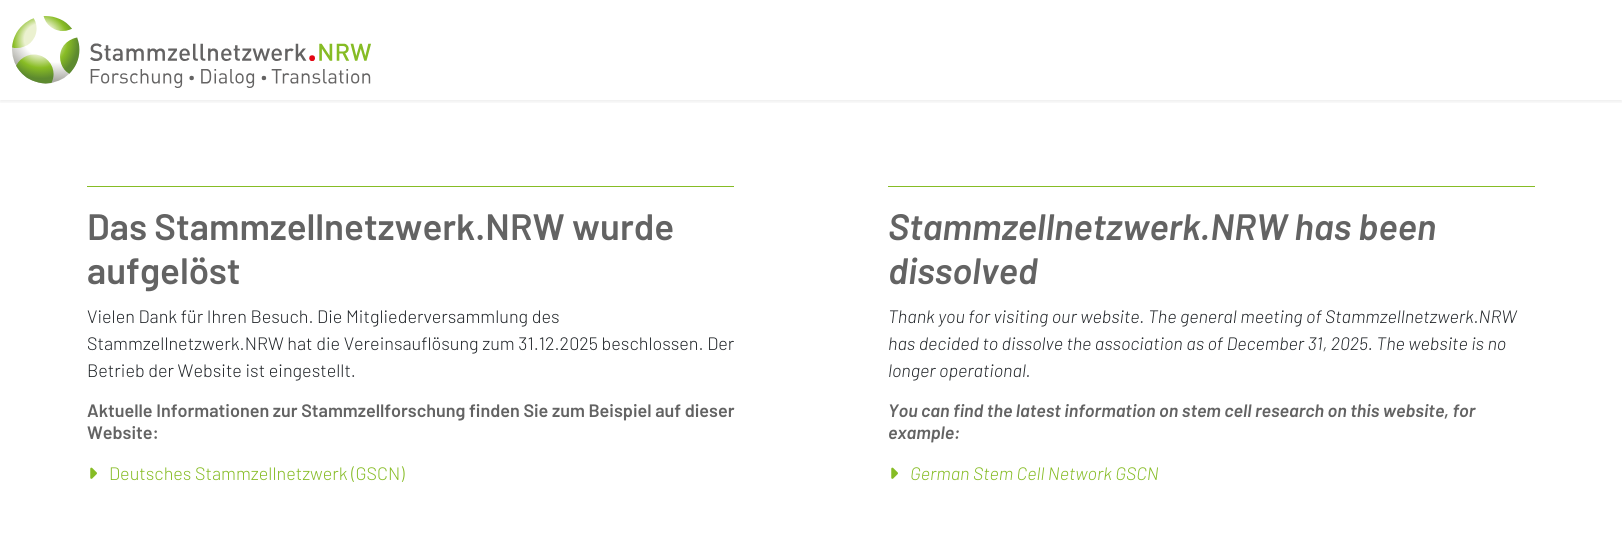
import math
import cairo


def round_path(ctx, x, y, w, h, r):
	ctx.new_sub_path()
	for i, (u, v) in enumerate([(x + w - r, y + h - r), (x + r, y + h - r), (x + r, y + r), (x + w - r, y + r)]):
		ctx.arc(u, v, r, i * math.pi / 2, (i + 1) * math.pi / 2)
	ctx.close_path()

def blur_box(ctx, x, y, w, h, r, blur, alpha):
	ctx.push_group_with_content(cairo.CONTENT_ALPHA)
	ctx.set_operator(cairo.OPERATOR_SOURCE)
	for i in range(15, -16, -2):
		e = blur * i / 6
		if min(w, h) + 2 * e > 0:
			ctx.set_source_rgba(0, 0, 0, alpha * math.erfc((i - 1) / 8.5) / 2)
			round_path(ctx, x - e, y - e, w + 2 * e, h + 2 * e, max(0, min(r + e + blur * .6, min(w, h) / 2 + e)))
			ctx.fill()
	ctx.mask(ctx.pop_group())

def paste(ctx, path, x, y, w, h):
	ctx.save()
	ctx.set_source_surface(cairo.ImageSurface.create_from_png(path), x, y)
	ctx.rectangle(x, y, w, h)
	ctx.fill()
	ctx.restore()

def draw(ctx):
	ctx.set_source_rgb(1, 1, 1)
	ctx.paint()
	ctx.save()
	ctx.rectangle(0, 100, 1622, 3)
	ctx.clip()
	ctx.set_source_rgb(0, 0, 0)
	blur_box(ctx, 0, 2, 1622, 100, 0, 2, 0.07)
	ctx.restore()
	paste(ctx, 'media/1.png', 12, 16, 359, 72)
	ctx.set_source_rgb(0.525, 0.737, 0.145)
	ctx.rectangle(87, 186, 647, 1)
	ctx.fill()
	ctx.select_font_face('Barlow SemiBold')
	ctx.set_font_size(36.75)
	ctx.set_source_rgb(0.388, 0.388, 0.388)
	ctx.move_to(87, 240)
	ctx.show_text('Das Stammzellnetzwerk.NRW wurde')
	ctx.move_to(87, 284)
	ctx.show_text('aufgelöst')
	ctx.select_font_face('Barlow Light')
	ctx.set_font_size(18)
	ctx.set_source_rgb(0.129, 0.145, 0.161)
	for x, y, s in [
		(87, 323, 'Vielen Dank für Ihren Besuch. Die Mitgliederversammlung des'),
		(87, 350, 'Stammzellnetzwerk.NRW hat die Vereinsauflösung zum 31.12.2025 beschlossen. Der'),
		(87, 377, 'Betrieb der Website ist eingestellt.'),
	]:
		ctx.move_to(x, y)
		ctx.show_text(s)
	ctx.select_font_face('Barlow SemiBold')
	ctx.set_source_rgb(0.388, 0.388, 0.388)
	ctx.move_to(87, 417)
	ctx.show_text('Aktuelle Informationen zur Stammzellforschung finden Sie zum Beispiel auf dieser')
	ctx.move_to(87, 439)
	ctx.show_text('Website:')
	paste(ctx, 'media/2.png', 90, 467, 7, 12)
	ctx.select_font_face('Barlow Light')
	ctx.set_source_rgb(0.525, 0.737, 0.145)
	ctx.move_to(109, 480)
	ctx.show_text('Deutsches Stammzellnetzwerk (GSCN)')
	ctx.rectangle(888, 186, 647, 1)
	ctx.fill()
	ctx.select_font_face('Barlow SemiBold', cairo.FONT_SLANT_ITALIC)
	ctx.set_font_size(36.75)
	ctx.set_source_rgb(0.388, 0.388, 0.388)
	ctx.move_to(888, 240)
	ctx.show_text('Stammzellnetzwerk.NRW has been')
	ctx.move_to(888, 284)
	ctx.show_text('dissolved')
	ctx.select_font_face('Barlow Light', cairo.FONT_SLANT_ITALIC)
	ctx.set_font_size(18)
	ctx.set_source_rgb(0.129, 0.145, 0.161)
	for x, y, s in [
		(888, 323, 'Thank you for visiting our website. The general meeting of Stammzellnetzwerk.NRW'),
		(888, 350, 'has decided to dissolve the association as of December 31, 2025. The website is no'),
		(888, 377, 'longer operational.'),
	]:
		ctx.move_to(x, y)
		ctx.show_text(s)
	ctx.select_font_face('Barlow SemiBold', cairo.FONT_SLANT_ITALIC)
	ctx.set_source_rgb(0.388, 0.388, 0.388)
	ctx.move_to(888, 417)
	ctx.show_text('You can find the latest information on stem cell research on this website, for')
	ctx.move_to(888, 439)
	ctx.show_text('example:')
	paste(ctx, 'media/2.png', 891, 467, 7, 12)
	ctx.select_font_face('Barlow Light', cairo.FONT_SLANT_ITALIC)
	ctx.set_source_rgb(0.525, 0.737, 0.145)
	ctx.move_to(910, 480)
	ctx.show_text('German Stem Cell Network GSCN')


surface = cairo.ImageSurface(cairo.FORMAT_RGB24, 1622, 556)
ctx = cairo.Context(surface)
options = cairo.FontOptions()
options.set_hint_metrics(cairo.HINT_METRICS_OFF)
options.set_hint_style(cairo.HINT_STYLE_NONE)
ctx.set_font_options(options)
ctx.set_miter_limit(4)
draw(ctx)
surface.write_to_png('image.png')
